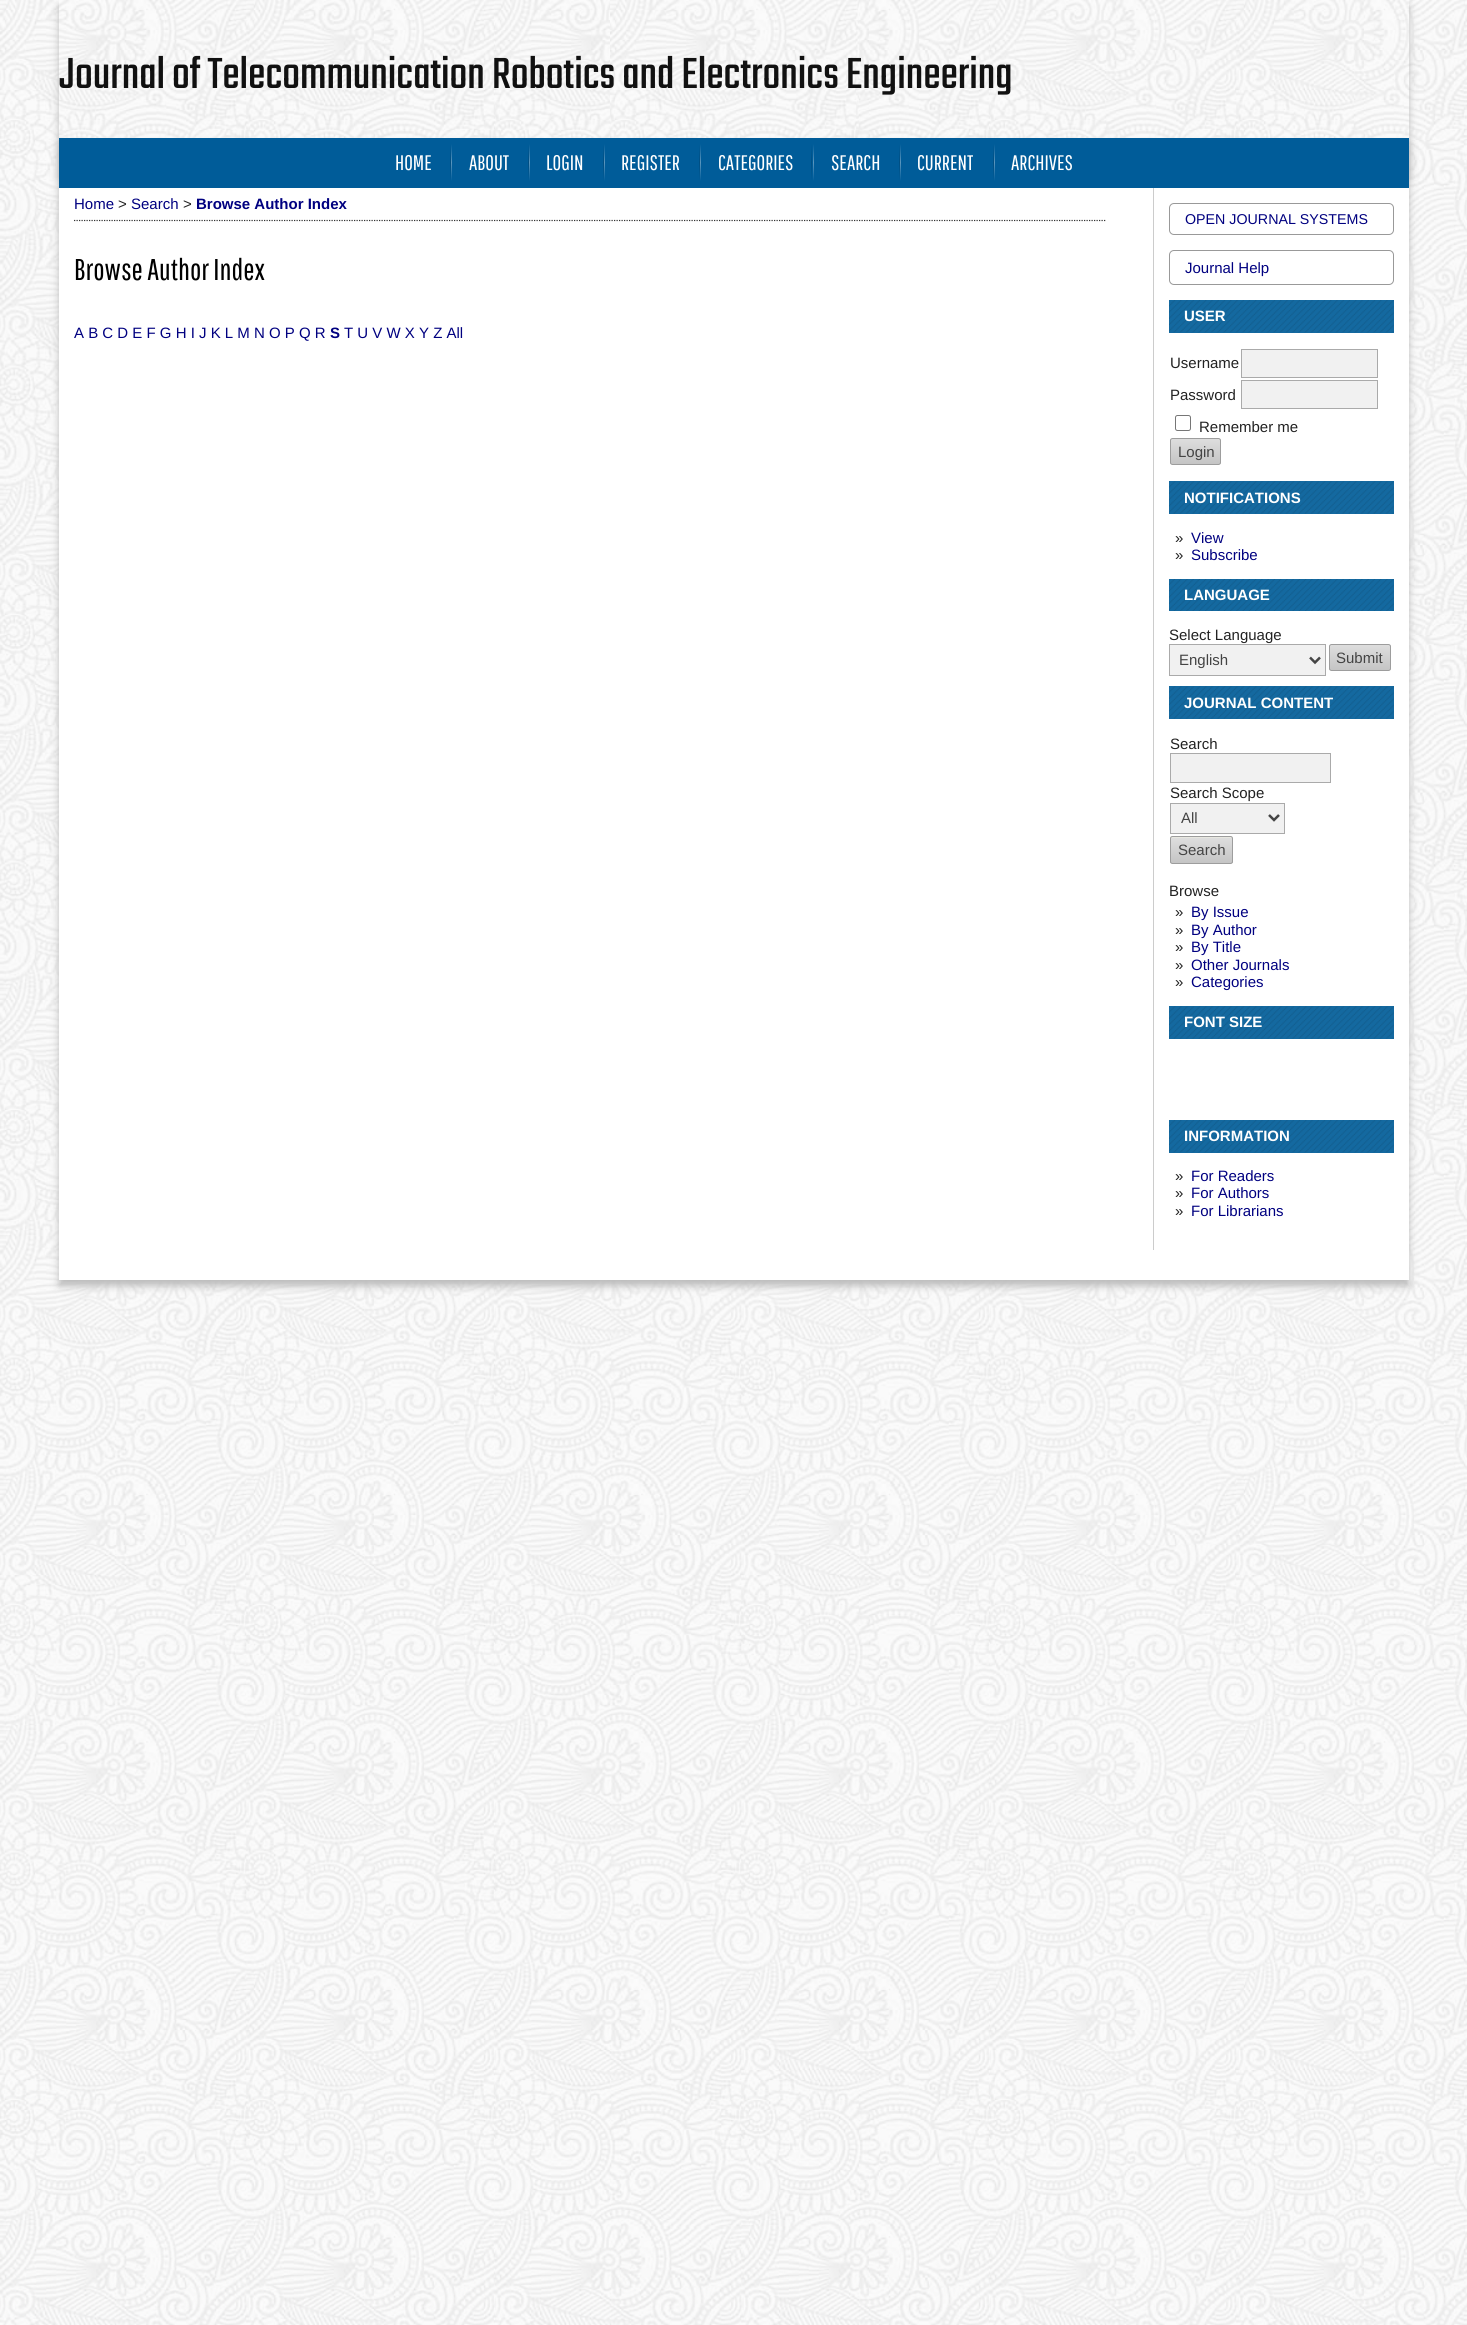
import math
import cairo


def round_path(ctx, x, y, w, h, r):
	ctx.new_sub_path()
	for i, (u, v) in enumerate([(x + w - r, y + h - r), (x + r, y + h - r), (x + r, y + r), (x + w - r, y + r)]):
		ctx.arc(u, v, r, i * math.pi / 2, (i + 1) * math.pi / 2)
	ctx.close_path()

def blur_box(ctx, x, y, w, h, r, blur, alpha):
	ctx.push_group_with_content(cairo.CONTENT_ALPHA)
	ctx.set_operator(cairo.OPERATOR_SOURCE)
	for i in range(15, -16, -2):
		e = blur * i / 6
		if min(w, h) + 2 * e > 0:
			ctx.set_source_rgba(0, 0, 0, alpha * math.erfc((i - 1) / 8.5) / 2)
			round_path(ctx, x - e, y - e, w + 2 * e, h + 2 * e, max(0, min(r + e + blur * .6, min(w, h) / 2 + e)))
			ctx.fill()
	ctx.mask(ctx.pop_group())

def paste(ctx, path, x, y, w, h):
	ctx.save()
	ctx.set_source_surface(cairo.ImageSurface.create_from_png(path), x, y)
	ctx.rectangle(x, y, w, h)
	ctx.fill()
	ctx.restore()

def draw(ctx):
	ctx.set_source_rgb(1, 1, 1)
	ctx.paint()
	paste(ctx, 'media/1.png', 0, 0, 1467, 2325)
	paste(ctx, 'media/2.png', 610, 0, 248, 138)
	ctx.save()
	ctx.set_fill_rule(cairo.FILL_RULE_EVEN_ODD)
	ctx.new_path()
	ctx.move_to(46, 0)
	ctx.line_to(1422, 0)
	ctx.line_to(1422, 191)
	ctx.line_to(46, 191)
	ctx.close_path()
	ctx.move_to(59, 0)
	ctx.line_to(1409, 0)
	ctx.line_to(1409, 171)
	ctx.line_to(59, 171)
	ctx.close_path()
	ctx.clip()
	ctx.set_source_rgb(0.733, 0.733, 0.733)
	blur_box(ctx, 59, 6, 1350, 172, 0, 4, 1)
	ctx.restore()
	ctx.select_font_face('Teko')
	ctx.set_font_size(48)
	ctx.set_source_rgb(0.067, 0.067, 0.067)
	ctx.move_to(59, 88)
	ctx.show_text('Journal of Telecommunication Robotics and Electronics Engineering')
	ctx.set_source_rgb(0.733, 0.733, 0.733)
	blur_box(ctx, 59, 144, 1350, 1142, 0, 4, 1)
	ctx.set_source_rgb(1, 1, 1)
	ctx.rectangle(59, 188, 1350, 1092)
	ctx.fill()
	ctx.set_source_rgb(0, 0.361, 0.6)
	ctx.rectangle(59, 138, 1350, 50)
	ctx.fill()
	ctx.select_font_face('Pathway Gothic One')
	ctx.set_font_size(21)
	ctx.set_source_rgb(1, 1, 1)
	ctx.move_to(395, 170)
	ctx.show_text('HOME')
	gradient = cairo.LinearGradient(451, 144, 451, 181)
	gradient.add_color_stop_rgba(0, 0, 0.361, 0.6, 1)
	gradient.add_color_stop_rgba(0.5, 0, 0.306, 0.51, 1)
	gradient.add_color_stop_rgba(1, 0, 0.361, 0.6, 1)
	ctx.set_source(gradient)
	ctx.rectangle(450, 144, 1, 37)
	ctx.fill()
	gradient = cairo.LinearGradient(452, 144, 452, 181)
	gradient.add_color_stop_rgba(0, 0, 0.361, 0.6, 1)
	gradient.add_color_stop_rgba(0.5, 0.349, 0.584, 0.741, 1)
	gradient.add_color_stop_rgba(1, 0, 0.361, 0.6, 1)
	ctx.set_source(gradient)
	ctx.rectangle(451, 144, 1, 37)
	ctx.fill()
	ctx.set_source_rgb(1, 1, 1)
	ctx.move_to(469, 170)
	ctx.show_text('ABOUT')
	gradient = cairo.LinearGradient(528, 144, 528, 181)
	gradient.add_color_stop_rgba(0, 0, 0.361, 0.6, 1)
	gradient.add_color_stop_rgba(0.5, 0, 0.306, 0.51, 1)
	gradient.add_color_stop_rgba(1, 0, 0.361, 0.6, 1)
	ctx.set_source(gradient)
	ctx.rectangle(528, 144, 1, 37)
	ctx.fill()
	gradient = cairo.LinearGradient(529, 144, 529, 181)
	gradient.add_color_stop_rgba(0, 0, 0.361, 0.6, 1)
	gradient.add_color_stop_rgba(0.5, 0.349, 0.584, 0.741, 1)
	gradient.add_color_stop_rgba(1, 0, 0.361, 0.6, 1)
	ctx.set_source(gradient)
	ctx.rectangle(529, 144, 1, 37)
	ctx.fill()
	ctx.set_source_rgb(1, 1, 1)
	ctx.move_to(546, 170)
	ctx.show_text('LOGIN')
	gradient = cairo.LinearGradient(603, 144, 603, 181)
	gradient.add_color_stop_rgba(0, 0, 0.361, 0.6, 1)
	gradient.add_color_stop_rgba(0.5, 0, 0.306, 0.51, 1)
	gradient.add_color_stop_rgba(1, 0, 0.361, 0.6, 1)
	ctx.set_source(gradient)
	ctx.rectangle(603, 144, 1, 37)
	ctx.fill()
	gradient = cairo.LinearGradient(604, 144, 604, 181)
	gradient.add_color_stop_rgba(0, 0, 0.361, 0.6, 1)
	gradient.add_color_stop_rgba(0.5, 0.349, 0.584, 0.741, 1)
	gradient.add_color_stop_rgba(1, 0, 0.361, 0.6, 1)
	ctx.set_source(gradient)
	ctx.rectangle(604, 144, 1, 37)
	ctx.fill()
	ctx.set_source_rgb(1, 1, 1)
	ctx.move_to(621, 170)
	ctx.show_text('REGISTER')
	gradient = cairo.LinearGradient(699, 144, 699, 181)
	gradient.add_color_stop_rgba(0, 0, 0.361, 0.6, 1)
	gradient.add_color_stop_rgba(0.5, 0, 0.306, 0.51, 1)
	gradient.add_color_stop_rgba(1, 0, 0.361, 0.6, 1)
	ctx.set_source(gradient)
	ctx.rectangle(699, 144, 1, 37)
	ctx.fill()
	gradient = cairo.LinearGradient(701, 144, 701, 181)
	gradient.add_color_stop_rgba(0, 0, 0.361, 0.6, 1)
	gradient.add_color_stop_rgba(0.5, 0.349, 0.584, 0.741, 1)
	gradient.add_color_stop_rgba(1, 0, 0.361, 0.6, 1)
	ctx.set_source(gradient)
	ctx.rectangle(700, 144, 1, 37)
	ctx.fill()
	ctx.set_source_rgb(1, 1, 1)
	ctx.move_to(718, 170)
	ctx.show_text('CATEGORIES')
	gradient = cairo.LinearGradient(812, 144, 812, 181)
	gradient.add_color_stop_rgba(0, 0, 0.361, 0.6, 1)
	gradient.add_color_stop_rgba(0.5, 0, 0.306, 0.51, 1)
	gradient.add_color_stop_rgba(1, 0, 0.361, 0.6, 1)
	ctx.set_source(gradient)
	ctx.rectangle(811, 144, 1, 37)
	ctx.fill()
	gradient = cairo.LinearGradient(813, 144, 813, 181)
	gradient.add_color_stop_rgba(0, 0, 0.361, 0.6, 1)
	gradient.add_color_stop_rgba(0.5, 0.349, 0.584, 0.741, 1)
	gradient.add_color_stop_rgba(1, 0, 0.361, 0.6, 1)
	ctx.set_source(gradient)
	ctx.rectangle(813, 144, 1, 37)
	ctx.fill()
	ctx.set_source_rgb(1, 1, 1)
	ctx.move_to(831, 170)
	ctx.show_text('SEARCH')
	gradient = cairo.LinearGradient(899, 144, 899, 181)
	gradient.add_color_stop_rgba(0, 0, 0.361, 0.6, 1)
	gradient.add_color_stop_rgba(0.5, 0, 0.306, 0.51, 1)
	gradient.add_color_stop_rgba(1, 0, 0.361, 0.6, 1)
	ctx.set_source(gradient)
	ctx.rectangle(899, 144, 1, 37)
	ctx.fill()
	gradient = cairo.LinearGradient(901, 144, 901, 181)
	gradient.add_color_stop_rgba(0, 0, 0.361, 0.6, 1)
	gradient.add_color_stop_rgba(0.5, 0.349, 0.584, 0.741, 1)
	gradient.add_color_stop_rgba(1, 0, 0.361, 0.6, 1)
	ctx.set_source(gradient)
	ctx.rectangle(900, 144, 1, 37)
	ctx.fill()
	ctx.set_source_rgb(1, 1, 1)
	ctx.move_to(917, 170)
	ctx.show_text('CURRENT')
	gradient = cairo.LinearGradient(993, 144, 993, 181)
	gradient.add_color_stop_rgba(0, 0, 0.361, 0.6, 1)
	gradient.add_color_stop_rgba(0.5, 0, 0.306, 0.51, 1)
	gradient.add_color_stop_rgba(1, 0, 0.361, 0.6, 1)
	ctx.set_source(gradient)
	ctx.rectangle(993, 144, 1, 37)
	ctx.fill()
	gradient = cairo.LinearGradient(994, 144, 994, 181)
	gradient.add_color_stop_rgba(0, 0, 0.361, 0.6, 1)
	gradient.add_color_stop_rgba(0.5, 0.349, 0.584, 0.741, 1)
	gradient.add_color_stop_rgba(1, 0, 0.361, 0.6, 1)
	ctx.set_source(gradient)
	ctx.rectangle(994, 144, 1, 37)
	ctx.fill()
	ctx.set_source_rgb(1, 1, 1)
	ctx.move_to(1011, 170)
	ctx.show_text('ARCHIVES')
	ctx.new_path()
	ctx.move_to(74, 220.5)
	ctx.line_to(1106, 220.5)
	ctx.set_source_rgb(0.2, 0.2, 0.2)
	ctx.set_line_width(1.2)
	ctx.set_dash([1.25, 1.25])
	ctx.stroke()
	ctx.select_font_face('Liberation Sans')
	ctx.set_font_size(15)
	ctx.set_source_rgb(0, 0, 0.502)
	ctx.move_to(74, 209)
	ctx.show_text('Home')
	ctx.set_source_rgb(0.133, 0.133, 0.133)
	ctx.move_to(118, 209)
	ctx.show_text('>')
	ctx.set_source_rgb(0, 0, 0.502)
	ctx.move_to(131, 209)
	ctx.show_text('Search')
	ctx.set_source_rgb(0.133, 0.133, 0.133)
	ctx.move_to(183, 209)
	ctx.show_text('>')
	ctx.select_font_face('Liberation Sans', cairo.FONT_SLANT_NORMAL, cairo.FONT_WEIGHT_BOLD)
	ctx.set_source_rgb(0, 0, 0.502)
	ctx.move_to(196, 209)
	ctx.show_text('Browse Author Index')
	ctx.select_font_face('Pathway Gothic One')
	ctx.set_font_size(30)
	ctx.set_source_rgb(0, 0, 0)
	ctx.move_to(74, 280)
	ctx.show_text('Browse Author Index')
	ctx.select_font_face('Liberation Sans')
	ctx.set_font_size(15)
	ctx.set_source_rgb(0, 0, 0.502)
	ctx.move_to(74, 338)
	ctx.show_text('A B C D E F G H I J K L M N O P Q R')
	ctx.select_font_face('Liberation Sans', cairo.FONT_SLANT_NORMAL, cairo.FONT_WEIGHT_BOLD)
	ctx.move_to(330, 338)
	ctx.show_text('S')
	ctx.select_font_face('Liberation Sans')
	ctx.move_to(344, 338)
	ctx.show_text('T U V W X Y Z All')
	ctx.set_source_rgb(0.8, 0.8, 0.8)
	ctx.rectangle(1153, 188, 1, 1062)
	ctx.fill()
	round_path(ctx, 1169.5, 203.5, 224, 31, 4.5)
	ctx.set_source_rgb(0.6, 0.6, 0.6)
	ctx.set_line_width(1)
	ctx.set_dash([])
	ctx.stroke()
	ctx.set_font_size(14.25)
	ctx.set_source_rgb(0, 0, 0.502)
	ctx.move_to(1185, 224)
	ctx.show_text('OPEN JOURNAL SYSTEMS')
	round_path(ctx, 1169.5, 250.5, 224, 34, 4.5)
	ctx.set_source_rgb(0.6, 0.6, 0.6)
	ctx.stroke()
	ctx.set_font_size(15)
	ctx.set_source_rgb(0, 0, 0.502)
	ctx.move_to(1185, 273)
	ctx.show_text('Journal Help')
	ctx.set_source_rgb(0.082, 0.412, 0.627)
	ctx.rectangle(1169, 300, 225, 33)
	ctx.fill()
	paste(ctx, 'media/3.png', 1169, 300, 225, 33)
	ctx.select_font_face('Liberation Sans', cairo.FONT_SLANT_NORMAL, cairo.FONT_WEIGHT_BOLD)
	ctx.set_source_rgb(1, 1, 1)
	ctx.move_to(1184, 321)
	ctx.show_text('USER')
	ctx.select_font_face('Liberation Sans')
	ctx.set_source_rgb(0.133, 0.133, 0.133)
	ctx.move_to(1170, 368)
	ctx.show_text('Username')
	ctx.set_source_rgb(0.945, 0.945, 0.945)
	ctx.rectangle(1241.5, 349.5, 136, 28)
	ctx.fill_preserve()
	ctx.set_source_rgb(0.667, 0.667, 0.667)
	ctx.stroke()
	ctx.set_source_rgb(0.133, 0.133, 0.133)
	ctx.move_to(1170, 400)
	ctx.show_text('Password')
	ctx.set_source_rgb(0.945, 0.945, 0.945)
	ctx.rectangle(1241.5, 380.5, 136, 28)
	ctx.fill_preserve()
	ctx.set_source_rgb(0.667, 0.667, 0.667)
	ctx.stroke()
	round_path(ctx, 1175.5, 415.5, 15, 15, 2)
	ctx.set_source_rgb(0.463, 0.463, 0.463)
	ctx.stroke()
	ctx.set_source_rgb(0.133, 0.133, 0.133)
	ctx.move_to(1199, 432)
	ctx.show_text('Remember me')
	ctx.save()
	round_path(ctx, 1170, 438, 51, 27, 2.5)
	ctx.clip()
	gradient = cairo.LinearGradient(1196, 439, 1196, 464)
	gradient.add_color_stop_rgba(0, 0.867, 0.867, 0.867, 1)
	gradient.add_color_stop_rgba(1, 0.769, 0.769, 0.769, 1)
	ctx.set_source(gradient)
	ctx.rectangle(1170, 439, 51, 25)
	ctx.fill()
	ctx.restore()
	round_path(ctx, 1170.5, 438.5, 50, 26, 2)
	ctx.set_source_rgb(0.616, 0.616, 0.616)
	ctx.stroke()
	ctx.set_source_rgb(0.267, 0.267, 0.267)
	ctx.move_to(1178, 457)
	ctx.show_text('Login')
	ctx.set_source_rgb(0.082, 0.412, 0.627)
	ctx.rectangle(1169, 481, 225, 33)
	ctx.fill()
	paste(ctx, 'media/4.png', 1169, 481, 225, 33)
	ctx.select_font_face('Liberation Sans', cairo.FONT_SLANT_NORMAL, cairo.FONT_WEIGHT_BOLD)
	ctx.set_source_rgb(1, 1, 1)
	ctx.move_to(1184, 503)
	ctx.show_text('NOTIFICATIONS')
	ctx.select_font_face('Liberation Sans')
	ctx.set_source_rgb(0.133, 0.133, 0.133)
	ctx.move_to(1175, 543)
	ctx.show_text('»')
	ctx.set_source_rgb(0, 0, 0.502)
	ctx.move_to(1191, 543)
	ctx.show_text('View')
	ctx.set_source_rgb(0.133, 0.133, 0.133)
	ctx.move_to(1175, 560)
	ctx.show_text('»')
	ctx.set_source_rgb(0, 0, 0.502)
	ctx.move_to(1191, 560)
	ctx.show_text('Subscribe')
	ctx.set_source_rgb(0.082, 0.412, 0.627)
	ctx.rectangle(1169, 579, 225, 32)
	ctx.fill()
	paste(ctx, 'media/5.png', 1169, 579, 225, 32)
	ctx.select_font_face('Liberation Sans', cairo.FONT_SLANT_NORMAL, cairo.FONT_WEIGHT_BOLD)
	ctx.set_source_rgb(1, 1, 1)
	ctx.move_to(1184, 600)
	ctx.show_text('LANGUAGE')
	ctx.select_font_face('Liberation Sans')
	ctx.set_source_rgb(0.133, 0.133, 0.133)
	ctx.move_to(1169, 640)
	ctx.show_text('Select Language')
	ctx.set_source_rgb(0.945, 0.945, 0.945)
	ctx.rectangle(1169.5, 644.5, 156, 31)
	ctx.fill_preserve()
	ctx.set_source_rgb(0.667, 0.667, 0.667)
	ctx.stroke()
	ctx.new_path()
	ctx.move_to(1310, 657.5)
	ctx.line_to(1315, 662.5)
	ctx.line_to(1320, 657.5)
	ctx.set_source_rgb(0.267, 0.267, 0.267)
	ctx.set_line_width(2.5)
	ctx.stroke()
	ctx.move_to(1179, 665)
	ctx.show_text('English')
	ctx.save()
	round_path(ctx, 1329, 644, 62, 27, 2.5)
	ctx.clip()
	gradient = cairo.LinearGradient(1360, 645, 1360, 670)
	gradient.add_color_stop_rgba(0, 0.867, 0.867, 0.867, 1)
	gradient.add_color_stop_rgba(1, 0.769, 0.769, 0.769, 1)
	ctx.set_source(gradient)
	ctx.rectangle(1329, 645, 62, 25)
	ctx.fill()
	ctx.restore()
	round_path(ctx, 1329.5, 644.5, 61, 26, 2)
	ctx.set_source_rgb(0.616, 0.616, 0.616)
	ctx.set_line_width(1)
	ctx.stroke()
	ctx.set_source_rgb(0.267, 0.267, 0.267)
	ctx.move_to(1336, 663)
	ctx.show_text('Submit')
	ctx.set_source_rgb(0.082, 0.412, 0.627)
	ctx.rectangle(1169, 686, 225, 33)
	ctx.fill()
	paste(ctx, 'media/6.png', 1169, 686, 225, 33)
	ctx.select_font_face('Liberation Sans', cairo.FONT_SLANT_NORMAL, cairo.FONT_WEIGHT_BOLD)
	ctx.set_source_rgb(1, 1, 1)
	ctx.move_to(1184, 708)
	ctx.show_text('JOURNAL CONTENT')
	ctx.select_font_face('Liberation Sans')
	ctx.set_source_rgb(0.133, 0.133, 0.133)
	ctx.move_to(1170, 749)
	ctx.show_text('Search')
	ctx.set_source_rgb(0.945, 0.945, 0.945)
	ctx.rectangle(1170.5, 753.5, 160, 29)
	ctx.fill_preserve()
	ctx.set_source_rgb(0.667, 0.667, 0.667)
	ctx.stroke()
	ctx.set_source_rgb(0.133, 0.133, 0.133)
	ctx.move_to(1170, 798)
	ctx.show_text('Search Scope')
	ctx.set_source_rgb(0.945, 0.945, 0.945)
	ctx.rectangle(1170.5, 803.5, 114, 30)
	ctx.fill_preserve()
	ctx.set_source_rgb(0.667, 0.667, 0.667)
	ctx.stroke()
	ctx.new_path()
	ctx.move_to(1269, 815)
	ctx.line_to(1274, 820)
	ctx.line_to(1279, 815)
	ctx.set_source_rgb(0.267, 0.267, 0.267)
	ctx.set_line_width(2.5)
	ctx.stroke()
	ctx.move_to(1181, 823)
	ctx.show_text('All')
	ctx.set_source_rgb(0.91, 0.91, 0.882)
	round_path(ctx, 1170, 836, 63, 28, 2.5)
	ctx.fill()
	gradient = cairo.LinearGradient(1201, 838, 1201, 863)
	gradient.add_color_stop_rgba(0, 0.867, 0.867, 0.867, 1)
	gradient.add_color_stop_rgba(1, 0.769, 0.769, 0.769, 1)
	ctx.set_source(gradient)
	ctx.rectangle(1170, 838, 63, 25)
	ctx.fill()
	round_path(ctx, 1170.5, 836.5, 62, 27, 2)
	ctx.set_source_rgb(0.616, 0.616, 0.616)
	ctx.set_line_width(1)
	ctx.stroke()
	ctx.set_source_rgb(0.267, 0.267, 0.267)
	ctx.move_to(1178, 855)
	ctx.show_text('Search')
	ctx.set_source_rgb(0.133, 0.133, 0.133)
	ctx.move_to(1169, 896)
	ctx.show_text('Browse')
	ctx.move_to(1175, 917)
	ctx.show_text('»')
	ctx.set_source_rgb(0, 0, 0.502)
	ctx.move_to(1191, 917)
	ctx.show_text('By Issue')
	ctx.set_source_rgb(0.133, 0.133, 0.133)
	ctx.move_to(1175, 935)
	ctx.show_text('»')
	ctx.set_source_rgb(0, 0, 0.502)
	ctx.move_to(1191, 935)
	ctx.show_text('By Author')
	ctx.set_source_rgb(0.133, 0.133, 0.133)
	ctx.move_to(1175, 952)
	ctx.show_text('»')
	ctx.set_source_rgb(0, 0, 0.502)
	ctx.move_to(1191, 952)
	ctx.show_text('By Title')
	ctx.set_source_rgb(0.133, 0.133, 0.133)
	ctx.move_to(1175, 970)
	ctx.show_text('»')
	ctx.set_source_rgb(0, 0, 0.502)
	ctx.move_to(1191, 970)
	ctx.show_text('Other Journals')
	ctx.set_source_rgb(0.133, 0.133, 0.133)
	ctx.move_to(1175, 987)
	ctx.show_text('»')
	ctx.set_source_rgb(0, 0, 0.502)
	ctx.move_to(1191, 987)
	ctx.show_text('Categories')
	ctx.set_source_rgb(0.082, 0.412, 0.627)
	ctx.rectangle(1169, 1006, 225, 33)
	ctx.fill()
	paste(ctx, 'media/6.png', 1169, 1006, 225, 33)
	ctx.select_font_face('Liberation Sans', cairo.FONT_SLANT_NORMAL, cairo.FONT_WEIGHT_BOLD)
	ctx.set_source_rgb(1, 1, 1)
	ctx.move_to(1184, 1027)
	ctx.show_text('FONT SIZE')
	ctx.set_source_rgb(0.082, 0.412, 0.627)
	ctx.rectangle(1169, 1120, 225, 33)
	ctx.fill()
	paste(ctx, 'media/3.png', 1169, 1120, 225, 33)
	ctx.set_source_rgb(1, 1, 1)
	ctx.move_to(1184, 1141)
	ctx.show_text('INFORMATION')
	ctx.select_font_face('Liberation Sans')
	ctx.set_source_rgb(0.133, 0.133, 0.133)
	ctx.move_to(1175, 1181)
	ctx.show_text('»')
	ctx.set_source_rgb(0, 0, 0.502)
	ctx.move_to(1191, 1181)
	ctx.show_text('For Readers')
	ctx.set_source_rgb(0.133, 0.133, 0.133)
	ctx.move_to(1175, 1198)
	ctx.show_text('»')
	ctx.set_source_rgb(0, 0, 0.502)
	ctx.move_to(1191, 1198)
	ctx.show_text('For Authors')
	ctx.set_source_rgb(0.133, 0.133, 0.133)
	ctx.move_to(1175, 1216)
	ctx.show_text('»')
	ctx.set_source_rgb(0, 0, 0.502)
	ctx.move_to(1191, 1216)
	ctx.show_text('For Librarians')


surface = cairo.ImageSurface(cairo.FORMAT_RGB24, 1467, 2325)
ctx = cairo.Context(surface)
options = cairo.FontOptions()
options.set_hint_metrics(cairo.HINT_METRICS_OFF)
options.set_hint_style(cairo.HINT_STYLE_NONE)
ctx.set_font_options(options)
ctx.set_miter_limit(4)
draw(ctx)
surface.write_to_png('image.png')
